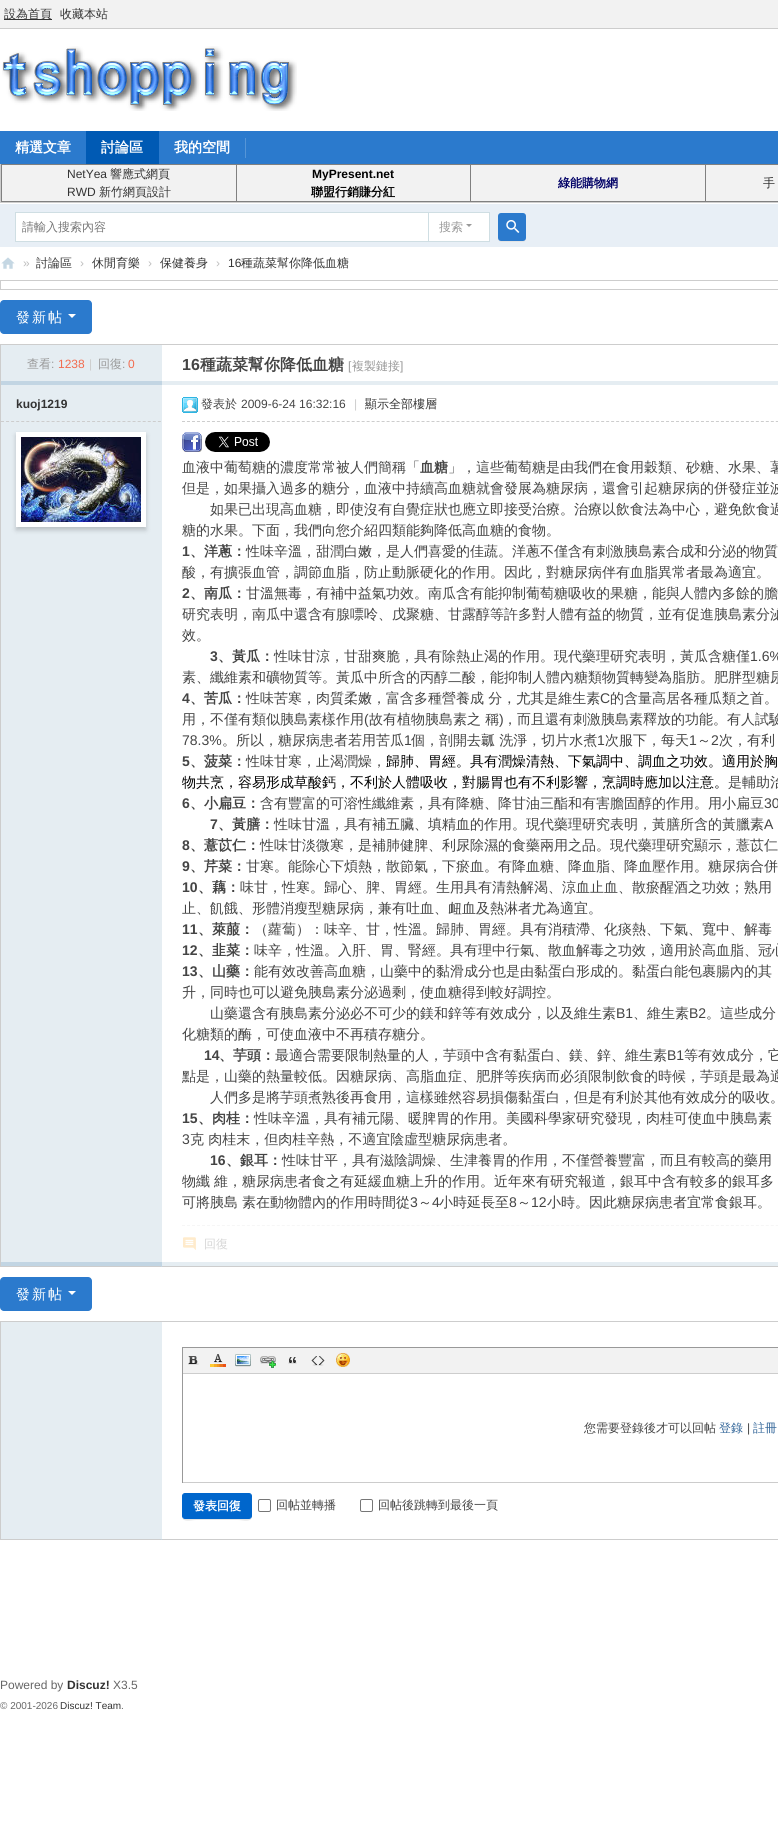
import math
import cairo


def write_spaced(ctx, x, y, s, letter, word):
	ctx.move_to(x, y)
	for ch in s:
		ctx.show_text(ch)
		ctx.rel_move_to(letter + word * (ch == ' '), 0)

def round_path(ctx, x, y, w, h, r):
	ctx.new_sub_path()
	for i, (u, v) in enumerate([(x + w - r, y + h - r), (x + r, y + h - r), (x + r, y + r), (x + w - r, y + r)]):
		ctx.arc(u, v, r, i * math.pi / 2, (i + 1) * math.pi / 2)
	ctx.close_path()

def blur_box(ctx, x, y, w, h, r, blur, alpha):
	ctx.push_group_with_content(cairo.CONTENT_ALPHA)
	ctx.set_operator(cairo.OPERATOR_SOURCE)
	for i in range(15, -16, -2):
		e = blur * i / 6
		if min(w, h) + 2 * e > 0:
			ctx.set_source_rgba(0, 0, 0, alpha * math.erfc((i - 1) / 8.5) / 2)
			round_path(ctx, x - e, y - e, w + 2 * e, h + 2 * e, max(0, min(r + e + blur * .6, min(w, h) / 2 + e)))
			ctx.fill()
	ctx.mask(ctx.pop_group())

def paste(ctx, path, x, y, w, h):
	ctx.save()
	ctx.set_source_surface(cairo.ImageSurface.create_from_png(path), x, y)
	ctx.rectangle(x, y, w, h)
	ctx.fill()
	ctx.restore()

def draw(ctx):
	ctx.set_source_rgb(1, 1, 1)
	ctx.paint()
	ctx.set_source_rgb(0.949, 0.949, 0.949)
	ctx.rectangle(0, 0, 778, 28)
	ctx.fill()
	ctx.set_source_rgb(0.804, 0.804, 0.804)
	ctx.rectangle(0, 28, 778, 1)
	ctx.fill()
	ctx.set_source_rgb(0.2, 0.2, 0.2)
	ctx.rectangle(4, 19, 48, 1)
	ctx.fill()
	ctx.select_font_face('WenQuanYi Zen Hei Medium')
	ctx.set_font_size(12)
	ctx.move_to(4, 18)
	ctx.show_text('設為首頁')
	ctx.move_to(60, 18)
	ctx.show_text('收藏本站')
	paste(ctx, 'media/1.png', 2, 46, 295, 65)
	ctx.set_source_rgb(0.169, 0.478, 0.804)
	ctx.rectangle(0, 131, 778, 33)
	ctx.fill()
	ctx.select_font_face('WenQuanYi Zen Hei', cairo.FONT_SLANT_NORMAL, cairo.FONT_WEIGHT_BOLD)
	ctx.set_font_size(14)
	ctx.set_source_rgb(1, 1, 1)
	ctx.move_to(15, 152)
	ctx.show_text('精選文章')
	ctx.set_source_rgb(0, 0.353, 0.706)
	ctx.rectangle(86, 131, 73, 33)
	ctx.fill()
	ctx.set_source_rgb(1, 1, 1)
	ctx.move_to(101, 152)
	ctx.show_text('討論區')
	ctx.set_source_rgb(0.333, 0.584, 0.843)
	ctx.rectangle(245, 138, 1, 20)
	ctx.fill()
	ctx.set_source_rgb(1, 1, 1)
	ctx.move_to(174, 152)
	ctx.show_text('我的空間')
	ctx.set_source_rgb(0.949, 0.949, 0.949)
	ctx.rectangle(2, 165, 776, 36)
	ctx.fill()
	ctx.set_source_rgb(0.804, 0.804, 0.804)
	ctx.rectangle(0, 202, 778, 1)
	ctx.rectangle(0, 164, 1, 39)
	ctx.fill()
	ctx.set_source_rgb(0.502, 0.502, 0.502)
	ctx.rectangle(1, 164, 777, 1)
	ctx.rectangle(1, 201, 777, 1)
	ctx.rectangle(1, 164, 1, 38)
	ctx.fill()
	ctx.select_font_face('Liberation Sans')
	ctx.set_font_size(12)
	ctx.set_source_rgb(0.2, 0.2, 0.2)
	ctx.move_to(67, 178)
	ctx.show_text('NetYea')
	ctx.select_font_face('WenQuanYi Zen Hei Medium')
	ctx.move_to(110, 178)
	ctx.show_text('響應式網頁')
	ctx.select_font_face('Liberation Sans')
	ctx.move_to(67, 196)
	ctx.show_text('RWD')
	ctx.select_font_face('WenQuanYi Zen Hei Medium')
	ctx.move_to(99, 196)
	ctx.show_text('新竹網頁設計')
	ctx.set_source_rgb(0.502, 0.502, 0.502)
	ctx.rectangle(236, 164, 1, 38)
	ctx.fill()
	ctx.select_font_face('Liberation Sans', cairo.FONT_SLANT_NORMAL, cairo.FONT_WEIGHT_BOLD)
	ctx.set_source_rgb(0, 0, 0)
	ctx.move_to(312, 178)
	ctx.show_text('MyPresent.net')
	ctx.select_font_face('WenQuanYi Zen Hei', cairo.FONT_SLANT_NORMAL, cairo.FONT_WEIGHT_BOLD)
	ctx.move_to(311, 196)
	ctx.show_text('聯盟行銷賺分紅')
	ctx.set_source_rgb(0.502, 0.502, 0.502)
	ctx.rectangle(470, 164, 1, 38)
	ctx.fill()
	ctx.set_source_rgb(0, 0, 0.4)
	ctx.move_to(558, 187)
	ctx.show_text('綠能購物網')
	ctx.set_source_rgb(0.502, 0.502, 0.502)
	ctx.rectangle(705, 164, 1, 38)
	ctx.fill()
	ctx.select_font_face('WenQuanYi Zen Hei Medium')
	ctx.set_source_rgb(0.2, 0.2, 0.2)
	ctx.move_to(763, 187)
	ctx.show_text('手')
	ctx.set_source_rgb(0.91, 0.937, 0.961)
	ctx.rectangle(0, 204, 778, 43)
	ctx.fill()
	ctx.set_source_rgb(0.812, 0.871, 0.89)
	ctx.rectangle(427, 212, 63, 1)
	ctx.rectangle(489, 212, 1, 30)
	ctx.rectangle(427, 241, 63, 1)
	ctx.fill()
	ctx.set_source_rgb(1, 1, 1)
	ctx.rectangle(15.5, 212.5, 413, 29)
	ctx.fill_preserve()
	ctx.set_source_rgb(0.812, 0.871, 0.89)
	ctx.set_line_width(1)
	ctx.stroke()
	ctx.set_source_rgb(0.459, 0.459, 0.459)
	ctx.move_to(22, 231)
	ctx.show_text('請輸入搜索內容')
	ctx.set_source_rgb(1, 1, 1)
	ctx.rectangle(429, 213, 60, 28)
	ctx.fill()
	ctx.set_source_rgb(0.6, 0.6, 0.6)
	ctx.move_to(439, 231)
	ctx.show_text('搜索')
	ctx.new_path()
	ctx.move_to(466, 224)
	ctx.line_to(472, 224)
	ctx.line_to(469, 227)
	ctx.close_path()
	ctx.fill()
	ctx.set_source_rgb(0.898, 0.898, 0.898)
	ctx.new_path()
	ctx.move_to(498, 238)
	ctx.curve_to(498, 242.5, 501, 242, 504.5, 242)
	ctx.line_to(519.5, 242)
	ctx.curve_to(523, 242, 526, 242.5, 526, 238)
	ctx.curve_to(526, 239.5, 524.5, 241, 523, 241)
	ctx.line_to(501, 241)
	ctx.curve_to(499.5, 241, 498, 239.5, 498, 238)
	ctx.close_path()
	ctx.fill()
	ctx.set_source_rgb(0.169, 0.478, 0.804)
	round_path(ctx, 498, 213, 28, 28, 3)
	ctx.fill()
	paste(ctx, 'media/2.png', 506, 220, 14, 13)
	paste(ctx, 'media/3.png', 1, 257, 14, 12)
	ctx.select_font_face('Liberation Sans')
	ctx.set_source_rgb(0.741, 0.741, 0.741)
	ctx.move_to(23, 267)
	ctx.show_text('»')
	ctx.select_font_face('WenQuanYi Zen Hei Medium')
	ctx.set_source_rgb(0.2, 0.2, 0.2)
	ctx.move_to(36, 267)
	ctx.show_text('討論區')
	ctx.select_font_face('Liberation Sans')
	ctx.set_source_rgb(0.741, 0.741, 0.741)
	ctx.move_to(80, 267)
	ctx.show_text('›')
	ctx.select_font_face('WenQuanYi Zen Hei Medium')
	ctx.set_source_rgb(0.2, 0.2, 0.2)
	ctx.move_to(92, 267)
	ctx.show_text('休閒育樂')
	ctx.select_font_face('Liberation Sans')
	ctx.set_source_rgb(0.741, 0.741, 0.741)
	ctx.move_to(148, 267)
	ctx.show_text('›')
	ctx.select_font_face('WenQuanYi Zen Hei Medium')
	ctx.set_source_rgb(0.2, 0.2, 0.2)
	ctx.move_to(160, 267)
	ctx.show_text('保健養身')
	ctx.select_font_face('Liberation Sans')
	ctx.set_source_rgb(0.741, 0.741, 0.741)
	ctx.move_to(216, 267)
	ctx.show_text('›')
	ctx.set_source_rgb(0.2, 0.2, 0.2)
	ctx.move_to(228, 267)
	ctx.show_text('16')
	ctx.select_font_face('WenQuanYi Zen Hei Medium')
	ctx.move_to(241, 267)
	ctx.show_text('種蔬菜幫你降低血糖')
	ctx.set_source_rgb(0.804, 0.804, 0.804)
	ctx.rectangle(0, 280, 778, 1)
	ctx.rectangle(0, 289, 778, 1)
	ctx.rectangle(0, 280, 1, 10)
	ctx.fill()
	ctx.set_source_rgb(0.169, 0.478, 0.804)
	round_path(ctx, 0, 300, 92, 34, 4)
	ctx.fill()
	ctx.set_font_size(14)
	ctx.set_source_rgb(1, 1, 1)
	write_spaced(ctx, 16, 322, '發新帖', 2, 0)
	ctx.new_path()
	ctx.move_to(68, 314)
	ctx.line_to(76, 314)
	ctx.line_to(72, 318)
	ctx.close_path()
	ctx.fill()
	ctx.rectangle(0.5, 344.5, 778, 922)
	ctx.set_source_rgb(0.804, 0.804, 0.804)
	ctx.stroke()
	ctx.set_source_rgb(0.898, 0.929, 0.949)
	ctx.rectangle(1, 345, 161, 36)
	ctx.fill()
	ctx.set_font_size(12)
	ctx.set_source_rgb(0.6, 0.6, 0.6)
	ctx.move_to(27, 368)
	ctx.show_text('查看')
	ctx.select_font_face('Liberation Sans')
	ctx.move_to(51, 368)
	ctx.show_text(':')
	ctx.set_source_rgb(0.949, 0.424, 0.31)
	ctx.move_to(58, 368)
	ctx.show_text('1238')
	ctx.set_source_rgb(0.8, 0.8, 0.8)
	ctx.move_to(89, 368)
	ctx.show_text('|')
	ctx.select_font_face('WenQuanYi Zen Hei Medium')
	ctx.set_source_rgb(0.6, 0.6, 0.6)
	ctx.move_to(98, 368)
	ctx.show_text('回復')
	ctx.select_font_face('Liberation Sans')
	ctx.move_to(122, 368)
	ctx.show_text(':')
	ctx.set_source_rgb(0.949, 0.424, 0.31)
	ctx.move_to(128, 368)
	ctx.show_text('0')
	ctx.select_font_face('Liberation Sans', cairo.FONT_SLANT_NORMAL, cairo.FONT_WEIGHT_BOLD)
	ctx.set_font_size(16)
	ctx.set_source_rgb(0.267, 0.267, 0.267)
	ctx.move_to(182, 370)
	ctx.show_text('16')
	ctx.select_font_face('WenQuanYi Zen Hei', cairo.FONT_SLANT_NORMAL, cairo.FONT_WEIGHT_BOLD)
	ctx.move_to(200, 370)
	ctx.show_text('種蔬菜幫你降低血糖')
	ctx.select_font_face('Liberation Sans')
	ctx.set_font_size(12)
	ctx.set_source_rgb(0.6, 0.6, 0.6)
	ctx.move_to(348, 370)
	ctx.show_text('[')
	ctx.select_font_face('WenQuanYi Zen Hei Medium')
	ctx.move_to(352, 370)
	ctx.show_text('複製鏈接')
	ctx.select_font_face('Liberation Sans')
	ctx.move_to(400, 370)
	ctx.show_text(']')
	ctx.set_source_rgb(0.761, 0.835, 0.89)
	ctx.rectangle(1, 381, 161, 4)
	ctx.fill()
	ctx.set_source_rgb(0.898, 0.929, 0.949)
	ctx.rectangle(162, 381, 616, 4)
	ctx.rectangle(1, 385, 161, 877)
	ctx.fill()
	ctx.new_path()
	ctx.move_to(1, 421.5)
	ctx.line_to(161, 421.5)
	ctx.set_source_rgb(0.804, 0.804, 0.804)
	ctx.set_dash([3, 2.06])
	ctx.stroke()
	ctx.select_font_face('Liberation Sans', cairo.FONT_SLANT_NORMAL, cairo.FONT_WEIGHT_BOLD)
	ctx.set_source_rgb(0.2, 0.2, 0.2)
	ctx.move_to(16, 408)
	ctx.show_text('kuoj1219')
	ctx.set_source_rgb(0, 0, 0)
	blur_box(ctx, 16, 435, 130, 95, 0, 2.5, 0.2)
	ctx.set_source_rgb(1, 1, 1)
	ctx.rectangle(16, 432, 130, 95)
	ctx.fill()
	paste(ctx, 'media/4.png', 21, 437, 120, 85)
	ctx.new_path()
	ctx.move_to(182, 421.5)
	ctx.line_to(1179, 421.5)
	ctx.set_source_rgb(0.804, 0.804, 0.804)
	ctx.set_dash([3, 1.99])
	ctx.stroke()
	paste(ctx, 'media/5.png', 182, 397, 16, 16)
	ctx.select_font_face('WenQuanYi Zen Hei Medium')
	ctx.set_source_rgb(0.267, 0.267, 0.267)
	ctx.move_to(201, 408)
	ctx.show_text('發表於')
	ctx.select_font_face('Liberation Sans')
	ctx.move_to(241, 408)
	ctx.show_text('2009-6-24 16:32:16')
	ctx.set_source_rgb(0.8, 0.8, 0.8)
	ctx.move_to(354, 408)
	ctx.show_text('|')
	ctx.select_font_face('WenQuanYi Zen Hei Medium')
	ctx.set_source_rgb(0.2, 0.2, 0.2)
	ctx.move_to(365, 408)
	ctx.show_text('顯示全部樓層')
	paste(ctx, 'media/6.png', 182, 432, 20, 20)
	paste(ctx, 'media/7.png', 205, 432, 65, 20)
	ctx.set_font_size(14)
	ctx.set_source_rgb(0.267, 0.267, 0.267)
	ctx.move_to(182, 472)
	ctx.show_text('血液中葡萄糖的濃度常常被人們簡稱「')
	ctx.select_font_face('WenQuanYi Zen Hei', cairo.FONT_SLANT_NORMAL, cairo.FONT_WEIGHT_BOLD)
	ctx.move_to(420, 472)
	ctx.show_text('血糖')
	ctx.select_font_face('WenQuanYi Zen Hei Medium')
	for x, y, s in [
		(448, 472, '」，這些葡萄糖是由我們在食用穀類、砂糖、水果、薯'),
		(182, 493, '但是，如果攝入過多的糖分，血液中持續高血糖就會發展為糖尿病，還會引起糖尿病的併發症並波'),
		(210, 514, '如果已出現高血糖，即使沒有自覺症狀也應立即接受治療。治療以飲食法為中心，避免飲食過'),
		(182, 535, '糖的水果。下面，我們向您介紹四類能夠降低高血糖的食物。'),
	]:
		ctx.move_to(x, y)
		ctx.show_text(s)
	ctx.select_font_face('Liberation Sans', cairo.FONT_SLANT_NORMAL, cairo.FONT_WEIGHT_BOLD)
	ctx.move_to(182, 556)
	ctx.show_text('1')
	ctx.select_font_face('WenQuanYi Zen Hei', cairo.FONT_SLANT_NORMAL, cairo.FONT_WEIGHT_BOLD)
	ctx.move_to(190, 556)
	ctx.show_text('、洋蔥：')
	ctx.select_font_face('WenQuanYi Zen Hei Medium')
	ctx.move_to(246, 556)
	ctx.show_text('性味辛溫，甜潤白嫩，是人們喜愛的佳蔬。洋蔥不僅含有刺激胰島素合成和分泌的物質')
	ctx.move_to(182, 577)
	ctx.show_text('酸，有擴張血管，調節血脂，防止動脈硬化的作用。因此，對糖尿病伴有血脂異常者最為適宜。')
	ctx.select_font_face('Liberation Sans', cairo.FONT_SLANT_NORMAL, cairo.FONT_WEIGHT_BOLD)
	ctx.move_to(182, 598)
	ctx.show_text('2')
	ctx.select_font_face('WenQuanYi Zen Hei', cairo.FONT_SLANT_NORMAL, cairo.FONT_WEIGHT_BOLD)
	ctx.move_to(190, 598)
	ctx.show_text('、南瓜：')
	ctx.select_font_face('WenQuanYi Zen Hei Medium')
	for x, y, s in [
		(246, 598, '甘溫無毒，有補中益氣功效。南瓜含有能抑制葡萄糖吸收的果糖，能與人體內多餘的膽'),
		(182, 619, '研究表明，南瓜中還含有腺嘌呤、戊聚糖、甘露醇等許多對人體有益的物質，並有促進胰島素分泌'),
		(182, 640, '效。'),
	]:
		ctx.move_to(x, y)
		ctx.show_text(s)
	ctx.select_font_face('Liberation Sans', cairo.FONT_SLANT_NORMAL, cairo.FONT_WEIGHT_BOLD)
	ctx.move_to(210, 661)
	ctx.show_text('3')
	ctx.select_font_face('WenQuanYi Zen Hei', cairo.FONT_SLANT_NORMAL, cairo.FONT_WEIGHT_BOLD)
	ctx.move_to(218, 661)
	ctx.show_text('、黃瓜：')
	ctx.select_font_face('WenQuanYi Zen Hei Medium')
	ctx.move_to(274, 661)
	ctx.show_text('性味甘涼，甘甜爽脆，具有除熱止渴的作用。現代藥理研究表明，黃瓜含糖僅')
	ctx.select_font_face('Liberation Sans')
	ctx.move_to(750, 661)
	ctx.show_text('1.6%')
	ctx.select_font_face('WenQuanYi Zen Hei Medium')
	ctx.move_to(182, 682)
	ctx.show_text('素、纖維素和礦物質等。黃瓜中所含的丙醇二酸，能抑制人體內糖類物質轉變為脂肪。肥胖型糖尿')
	ctx.select_font_face('Liberation Sans', cairo.FONT_SLANT_NORMAL, cairo.FONT_WEIGHT_BOLD)
	ctx.move_to(182, 703)
	ctx.show_text('4')
	ctx.select_font_face('WenQuanYi Zen Hei', cairo.FONT_SLANT_NORMAL, cairo.FONT_WEIGHT_BOLD)
	ctx.move_to(190, 703)
	ctx.show_text('、苦瓜：')
	ctx.select_font_face('WenQuanYi Zen Hei Medium')
	ctx.move_to(246, 703)
	ctx.show_text('性味苦寒，肉質柔嫩，富含多種營養成 分，尤其是維生素')
	ctx.select_font_face('Liberation Sans')
	ctx.move_to(600, 703)
	ctx.show_text('C')
	ctx.select_font_face('WenQuanYi Zen Hei Medium')
	ctx.move_to(610, 703)
	ctx.show_text('的含量高居各種瓜類之首。')
	ctx.move_to(182, 724)
	ctx.show_text('用，不僅有類似胰島素樣作用')
	ctx.select_font_face('Liberation Sans')
	ctx.move_to(364, 724)
	ctx.show_text('(')
	ctx.select_font_face('WenQuanYi Zen Hei Medium')
	ctx.move_to(369, 724)
	ctx.show_text('故有植物胰島素之 稱')
	ctx.select_font_face('Liberation Sans')
	ctx.move_to(499, 724)
	ctx.show_text(')')
	ctx.select_font_face('WenQuanYi Zen Hei Medium')
	ctx.move_to(503, 724)
	ctx.show_text('，而且還有刺激胰島素釋放的功能。有人試驗')
	ctx.select_font_face('Liberation Sans')
	ctx.move_to(182, 745)
	ctx.show_text('78.3%')
	ctx.select_font_face('WenQuanYi Zen Hei Medium')
	ctx.move_to(222, 745)
	ctx.show_text('。所以，糖尿病患者若用苦瓜')
	ctx.select_font_face('Liberation Sans')
	ctx.move_to(404, 745)
	ctx.show_text('1')
	ctx.select_font_face('WenQuanYi Zen Hei Medium')
	ctx.move_to(411, 745)
	ctx.show_text('個，剖開去瓤 洗淨，切片水煮')
	ctx.select_font_face('Liberation Sans')
	ctx.move_to(597, 745)
	ctx.show_text('1')
	ctx.select_font_face('WenQuanYi Zen Hei Medium')
	ctx.move_to(605, 745)
	ctx.show_text('次服下，每天')
	ctx.select_font_face('Liberation Sans')
	ctx.move_to(689, 745)
	ctx.show_text('1')
	ctx.select_font_face('WenQuanYi Zen Hei Medium')
	ctx.move_to(697, 745)
	ctx.show_text('～')
	ctx.select_font_face('Liberation Sans')
	ctx.move_to(711, 745)
	ctx.show_text('2')
	ctx.select_font_face('WenQuanYi Zen Hei Medium')
	ctx.move_to(719, 745)
	ctx.show_text('次，有利')
	ctx.select_font_face('Liberation Sans', cairo.FONT_SLANT_NORMAL, cairo.FONT_WEIGHT_BOLD)
	ctx.move_to(182, 766)
	ctx.show_text('5')
	ctx.select_font_face('WenQuanYi Zen Hei', cairo.FONT_SLANT_NORMAL, cairo.FONT_WEIGHT_BOLD)
	ctx.move_to(190, 766)
	ctx.show_text('、菠菜：')
	ctx.select_font_face('WenQuanYi Zen Hei Medium')
	ctx.move_to(246, 766)
	ctx.show_text('性味甘寒，止渴潤燥，')
	ctx.set_source_rgb(0, 0, 0)
	ctx.move_to(386, 766)
	ctx.show_text('歸肺、胃經。具有潤燥清熱、下氣調中、調血之功效。適用於胸')
	ctx.move_to(182, 787)
	ctx.show_text('物共烹，容易形成草酸鈣，不利於人體吸收，對腸胃也有不利影響，烹調時應加以注意。')
	ctx.set_source_rgb(0.267, 0.267, 0.267)
	ctx.move_to(728, 787)
	ctx.show_text('是輔助治')
	ctx.select_font_face('Liberation Sans', cairo.FONT_SLANT_NORMAL, cairo.FONT_WEIGHT_BOLD)
	ctx.move_to(182, 808)
	ctx.show_text('6')
	ctx.select_font_face('WenQuanYi Zen Hei', cairo.FONT_SLANT_NORMAL, cairo.FONT_WEIGHT_BOLD)
	ctx.move_to(190, 808)
	ctx.show_text('、小扁豆：')
	ctx.select_font_face('WenQuanYi Zen Hei Medium')
	ctx.move_to(260, 808)
	ctx.show_text('含有豐富的可溶性纖維素，具有降糖、降甘油三酯和有害膽固醇的作用。用小扁豆')
	ctx.select_font_face('Liberation Sans')
	ctx.move_to(764, 808)
	ctx.show_text('30')
	ctx.select_font_face('Liberation Sans', cairo.FONT_SLANT_NORMAL, cairo.FONT_WEIGHT_BOLD)
	ctx.move_to(210, 829)
	ctx.show_text('7')
	ctx.select_font_face('WenQuanYi Zen Hei', cairo.FONT_SLANT_NORMAL, cairo.FONT_WEIGHT_BOLD)
	ctx.move_to(218, 829)
	ctx.show_text('、黃膳：')
	ctx.select_font_face('WenQuanYi Zen Hei Medium')
	ctx.move_to(274, 829)
	ctx.show_text('性味甘溫，具有補五臟、填精血的作用。現代藥理研究表明，黃膳所含的黃臘素')
	ctx.select_font_face('Liberation Sans')
	ctx.move_to(764, 829)
	ctx.show_text('A')
	ctx.select_font_face('Liberation Sans', cairo.FONT_SLANT_NORMAL, cairo.FONT_WEIGHT_BOLD)
	ctx.move_to(182, 850)
	ctx.show_text('8')
	ctx.select_font_face('WenQuanYi Zen Hei', cairo.FONT_SLANT_NORMAL, cairo.FONT_WEIGHT_BOLD)
	ctx.move_to(190, 850)
	ctx.show_text('、薏苡仁：')
	ctx.select_font_face('WenQuanYi Zen Hei Medium')
	ctx.move_to(260, 850)
	ctx.show_text('性味甘淡微寒，是補肺健脾、利尿除濕的食藥兩用之品。現代藥理研究顯示，薏苡仁')
	ctx.select_font_face('Liberation Sans', cairo.FONT_SLANT_NORMAL, cairo.FONT_WEIGHT_BOLD)
	ctx.move_to(182, 871)
	ctx.show_text('9')
	ctx.select_font_face('WenQuanYi Zen Hei', cairo.FONT_SLANT_NORMAL, cairo.FONT_WEIGHT_BOLD)
	ctx.move_to(190, 871)
	ctx.show_text('、芹菜：')
	ctx.select_font_face('WenQuanYi Zen Hei Medium')
	ctx.move_to(246, 871)
	ctx.show_text('甘寒。能除心下煩熱，散節氣，下瘀血。有降血糖、降血脂、降血壓作用。糖尿病合併')
	ctx.select_font_face('Liberation Sans', cairo.FONT_SLANT_NORMAL, cairo.FONT_WEIGHT_BOLD)
	ctx.move_to(182, 892)
	ctx.show_text('10')
	ctx.select_font_face('WenQuanYi Zen Hei', cairo.FONT_SLANT_NORMAL, cairo.FONT_WEIGHT_BOLD)
	ctx.move_to(198, 892)
	ctx.show_text('、藕：')
	ctx.select_font_face('WenQuanYi Zen Hei Medium')
	ctx.move_to(240, 892)
	ctx.show_text('味甘，性寒。歸心、脾、胃經。生用具有清熱解渴、涼血止血、散瘀醒酒之功效；熟用')
	ctx.move_to(182, 913)
	ctx.show_text('止、飢餓、形體消瘦型糖尿病，兼有吐血、衄血及熱淋者尤為適宜。')
	ctx.select_font_face('Liberation Sans', cairo.FONT_SLANT_NORMAL, cairo.FONT_WEIGHT_BOLD)
	ctx.move_to(182, 934)
	ctx.show_text('11')
	ctx.select_font_face('WenQuanYi Zen Hei', cairo.FONT_SLANT_NORMAL, cairo.FONT_WEIGHT_BOLD)
	ctx.move_to(198, 934)
	ctx.show_text('、萊菔：')
	ctx.select_font_face('WenQuanYi Zen Hei Medium')
	ctx.move_to(254, 934)
	ctx.show_text('（蘿蔔）：味辛、甘，性溫。歸肺、胃經。具有消積滯、化痰熱、下氣、寬中、解毒')
	ctx.select_font_face('Liberation Sans', cairo.FONT_SLANT_NORMAL, cairo.FONT_WEIGHT_BOLD)
	ctx.move_to(182, 955)
	ctx.show_text('12')
	ctx.select_font_face('WenQuanYi Zen Hei', cairo.FONT_SLANT_NORMAL, cairo.FONT_WEIGHT_BOLD)
	ctx.move_to(198, 955)
	ctx.show_text('、韭菜：')
	ctx.select_font_face('WenQuanYi Zen Hei Medium')
	ctx.move_to(254, 955)
	ctx.show_text('味辛，性溫。入肝、胃、腎經。具有理中行氣、散血解毒之功效，適用於高血脂、冠心')
	ctx.select_font_face('Liberation Sans', cairo.FONT_SLANT_NORMAL, cairo.FONT_WEIGHT_BOLD)
	ctx.move_to(182, 976)
	ctx.show_text('13')
	ctx.select_font_face('WenQuanYi Zen Hei', cairo.FONT_SLANT_NORMAL, cairo.FONT_WEIGHT_BOLD)
	ctx.move_to(198, 976)
	ctx.show_text('、山藥：')
	ctx.select_font_face('WenQuanYi Zen Hei Medium')
	for x, y, s in [
		(254, 976, '能有效改善高血糖，山藥中的黏滑成分也是由黏蛋白形成的。黏蛋白能包裹腸內的其'),
		(182, 997, '升，同時也可以避免胰島素分泌過剩，使血糖得到較好調控。'),
		(210, 1018, '山藥還含有胰島素分泌必不可少的鎂和鋅等有效成分，以及維生素'),
	]:
		ctx.move_to(x, y)
		ctx.show_text(s)
	ctx.select_font_face('Liberation Sans')
	ctx.move_to(616, 1018)
	ctx.show_text('B1')
	ctx.select_font_face('WenQuanYi Zen Hei Medium')
	ctx.move_to(633, 1018)
	ctx.show_text('、維生素')
	ctx.select_font_face('Liberation Sans')
	ctx.move_to(689, 1018)
	ctx.show_text('B2')
	ctx.select_font_face('WenQuanYi Zen Hei Medium')
	ctx.move_to(706, 1018)
	ctx.show_text('。這些成分')
	ctx.move_to(182, 1039)
	ctx.show_text('化糖類的酶，可使血液中不再積存糖分。')
	ctx.select_font_face('Liberation Sans', cairo.FONT_SLANT_NORMAL, cairo.FONT_WEIGHT_BOLD)
	ctx.move_to(204, 1060)
	ctx.show_text('14')
	ctx.select_font_face('WenQuanYi Zen Hei', cairo.FONT_SLANT_NORMAL, cairo.FONT_WEIGHT_BOLD)
	ctx.move_to(219, 1060)
	ctx.show_text('、芋頭：')
	ctx.select_font_face('WenQuanYi Zen Hei Medium')
	ctx.move_to(275, 1060)
	ctx.show_text('最適合需要限制熱量的人，芋頭中含有黏蛋白、鎂、鋅、維生素')
	ctx.select_font_face('Liberation Sans')
	ctx.move_to(667, 1060)
	ctx.show_text('B1')
	ctx.select_font_face('WenQuanYi Zen Hei Medium')
	for x, y, s in [
		(684, 1060, '等有效成分，它'),
		(182, 1081, '點是，山藥的熱量較低。因糖尿病、高脂血症、肥胖等疾病而必須限制飲食的時候，芋頭是最為適'),
		(210, 1102, '人們多是將芋頭煮熟後再食用，這樣雖然容易損傷黏蛋白，但是有利於其他有效成分的吸收。'),
	]:
		ctx.move_to(x, y)
		ctx.show_text(s)
	ctx.select_font_face('Liberation Sans', cairo.FONT_SLANT_NORMAL, cairo.FONT_WEIGHT_BOLD)
	ctx.move_to(182, 1123)
	ctx.show_text('15')
	ctx.select_font_face('WenQuanYi Zen Hei', cairo.FONT_SLANT_NORMAL, cairo.FONT_WEIGHT_BOLD)
	ctx.move_to(198, 1123)
	ctx.show_text('、肉桂：')
	ctx.select_font_face('WenQuanYi Zen Hei Medium')
	ctx.move_to(254, 1123)
	ctx.show_text('性味辛溫，具有補元陽、暖脾胃的作用。美國科學家研究發現，肉桂可使血中胰島素')
	ctx.select_font_face('Liberation Sans')
	ctx.move_to(182, 1144)
	ctx.show_text('3')
	ctx.select_font_face('WenQuanYi Zen Hei Medium')
	ctx.move_to(190, 1144)
	ctx.show_text('克 肉桂末，但肉桂辛熱，不適宜陰虛型糖尿病患者。')
	ctx.select_font_face('Liberation Sans', cairo.FONT_SLANT_NORMAL, cairo.FONT_WEIGHT_BOLD)
	ctx.move_to(210, 1165)
	ctx.show_text('16')
	ctx.select_font_face('WenQuanYi Zen Hei', cairo.FONT_SLANT_NORMAL, cairo.FONT_WEIGHT_BOLD)
	ctx.move_to(226, 1165)
	ctx.show_text('、銀耳：')
	ctx.select_font_face('WenQuanYi Zen Hei Medium')
	for x, y, s in [
		(282, 1165, '性味甘平，具有滋陰調燥、生津養胃的作用，不僅營養豐富，而且有較高的藥用'),
		(182, 1186, '物纖'),
		(214, 1186, '維，糖尿病患者食之有延緩血糖上升的作用。近年來有研究報道，銀耳中含有較多的銀耳多'),
		(182, 1207, '可將胰島'),
		(242, 1207, '素在動物體內的作用時間從'),
	]:
		ctx.move_to(x, y)
		ctx.show_text(s)
	ctx.select_font_face('Liberation Sans')
	ctx.move_to(410, 1207)
	ctx.show_text('3')
	ctx.select_font_face('WenQuanYi Zen Hei Medium')
	ctx.move_to(418, 1207)
	ctx.show_text('～')
	ctx.select_font_face('Liberation Sans')
	ctx.move_to(432, 1207)
	ctx.show_text('4')
	ctx.select_font_face('WenQuanYi Zen Hei Medium')
	ctx.move_to(439, 1207)
	ctx.show_text('小時延長至')
	ctx.select_font_face('Liberation Sans')
	ctx.move_to(509, 1207)
	ctx.show_text('8')
	ctx.select_font_face('WenQuanYi Zen Hei Medium')
	ctx.move_to(517, 1207)
	ctx.show_text('～')
	ctx.select_font_face('Liberation Sans')
	ctx.move_to(531, 1207)
	ctx.show_text('12')
	ctx.select_font_face('WenQuanYi Zen Hei Medium')
	ctx.move_to(547, 1207)
	ctx.show_text('小時。因此糖尿病患者宜常食銀耳。')
	ctx.new_path()
	ctx.move_to(182, 1225.5)
	ctx.line_to(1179, 1225.5)
	ctx.set_source_rgb(0.961, 0.961, 0.961)
	ctx.stroke()
	paste(ctx, 'media/8.png', 183, 1237, 13, 13)
	ctx.set_font_size(12)
	ctx.set_source_rgb(0.839, 0.839, 0.839)
	ctx.move_to(204, 1248)
	ctx.show_text('回復')
	ctx.set_source_rgb(0.761, 0.835, 0.89)
	ctx.rectangle(161, 1262, 1, 5)
	ctx.rectangle(1, 1262, 161, 4)
	ctx.fill()
	ctx.set_source_rgb(0.898, 0.929, 0.949)
	ctx.rectangle(162, 1262, 616, 4)
	ctx.fill()
	ctx.set_source_rgb(0.169, 0.478, 0.804)
	round_path(ctx, 0, 1277, 92, 34, 4)
	ctx.fill()
	ctx.set_font_size(14)
	ctx.set_source_rgb(1, 1, 1)
	write_spaced(ctx, 16, 1299, '發新帖', 2, 0)
	ctx.new_path()
	ctx.move_to(68, 1291)
	ctx.line_to(76, 1291)
	ctx.line_to(72, 1295)
	ctx.close_path()
	ctx.fill()
	ctx.rectangle(0.5, 1321.5, 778, 218)
	ctx.set_source_rgb(0.804, 0.804, 0.804)
	ctx.set_dash([])
	ctx.stroke()
	ctx.set_source_rgb(0.761, 0.835, 0.89)
	ctx.rectangle(161, 1539, 1, 1)
	ctx.fill()
	ctx.set_source_rgb(0.898, 0.929, 0.949)
	ctx.rectangle(1, 1322, 161, 217)
	ctx.fill()
	ctx.set_source_rgb(0.6, 0.6, 0.6)
	ctx.rectangle(182, 1347, 596, 1)
	ctx.fill()
	ctx.set_source_rgb(0.8, 0.8, 0.8)
	ctx.rectangle(182, 1482, 596, 1)
	ctx.fill()
	ctx.set_source_rgb(0.6, 0.6, 0.6)
	ctx.rectangle(182, 1347, 1, 136)
	ctx.fill()
	ctx.set_source_rgb(0.949, 0.949, 0.949)
	ctx.rectangle(183, 1348, 595, 25)
	ctx.fill()
	ctx.set_source_rgb(0.804, 0.804, 0.804)
	ctx.rectangle(183, 1373, 595, 1)
	ctx.fill()
	paste(ctx, 'media/9.png', 188, 1356, 11, 9)
	paste(ctx, 'media/10.png', 210, 1354, 16, 13)
	paste(ctx, 'media/11.png', 235, 1354, 16, 13)
	paste(ctx, 'media/12.png', 260, 1356, 17, 12)
	paste(ctx, 'media/13.png', 288, 1357, 9, 7)
	paste(ctx, 'media/14.png', 311, 1356, 14, 10)
	paste(ctx, 'media/15.png', 335, 1353, 15, 14)
	ctx.set_font_size(12)
	ctx.set_source_rgb(0.267, 0.267, 0.267)
	ctx.move_to(584, 1432)
	ctx.show_text('您需要登錄後才可以回帖')
	ctx.set_source_rgb(0.2, 0.4, 0.6)
	ctx.move_to(719, 1432)
	ctx.show_text('登錄')
	ctx.select_font_face('Liberation Sans')
	ctx.set_source_rgb(0.267, 0.267, 0.267)
	ctx.move_to(747, 1432)
	ctx.show_text('|')
	ctx.select_font_face('WenQuanYi Zen Hei Medium')
	ctx.set_source_rgb(0.2, 0.4, 0.6)
	ctx.move_to(753, 1432)
	ctx.show_text('註冊')
	ctx.set_source_rgb(0.898, 0.898, 0.898)
	ctx.new_path()
	ctx.move_to(182, 1516)
	ctx.curve_to(182, 1523, 191, 1520, 196, 1520)
	ctx.line_to(238, 1520)
	ctx.curve_to(243, 1520, 252, 1523, 252, 1516)
	ctx.curve_to(252, 1518, 251, 1519, 249, 1519)
	ctx.line_to(185, 1519)
	ctx.curve_to(183, 1519, 182, 1518, 182, 1516)
	ctx.close_path()
	ctx.fill()
	ctx.set_source_rgb(0, 0.4, 0.8)
	round_path(ctx, 182.5, 1493.5, 69, 25, 2.5)
	ctx.fill_preserve()
	ctx.stroke()
	ctx.select_font_face('WenQuanYi Zen Hei', cairo.FONT_SLANT_NORMAL, cairo.FONT_WEIGHT_BOLD)
	ctx.set_source_rgb(1, 1, 1)
	ctx.move_to(193, 1510)
	ctx.show_text('發表回復')
	round_path(ctx, 258.5, 1499.5, 12, 12, 1.5)
	ctx.set_source_rgb(0.463, 0.463, 0.463)
	ctx.stroke()
	ctx.select_font_face('WenQuanYi Zen Hei Medium')
	ctx.set_source_rgb(0.267, 0.267, 0.267)
	ctx.move_to(276, 1509)
	ctx.show_text('回帖並轉播')
	round_path(ctx, 360.5, 1499.5, 12, 12, 1.5)
	ctx.set_source_rgb(0.463, 0.463, 0.463)
	ctx.stroke()
	ctx.set_source_rgb(0.267, 0.267, 0.267)
	ctx.move_to(378, 1509)
	ctx.show_text('回帖後跳轉到最後一頁')
	ctx.select_font_face('Liberation Sans')
	ctx.set_source_rgb(0.4, 0.4, 0.4)
	ctx.move_to(0, 1689)
	ctx.show_text('Powered by')
	ctx.select_font_face('Liberation Sans', cairo.FONT_SLANT_NORMAL, cairo.FONT_WEIGHT_BOLD)
	ctx.set_source_rgb(0.2, 0.2, 0.2)
	ctx.move_to(67, 1689)
	ctx.show_text('Discuz!')
	ctx.select_font_face('Liberation Sans')
	ctx.set_source_rgb(0.4, 0.4, 0.4)
	ctx.move_to(113, 1689)
	ctx.show_text('X3.5')
	ctx.set_font_size(10)
	ctx.move_to(0, 1709)
	ctx.show_text('© 2001-2026')
	ctx.set_source_rgb(0.2, 0.2, 0.2)
	ctx.move_to(60, 1709)
	ctx.show_text('Discuz! Team')
	ctx.set_source_rgb(0.4, 0.4, 0.4)
	ctx.move_to(121, 1709)
	ctx.show_text('.')


surface = cairo.ImageSurface(cairo.FORMAT_RGB24, 778, 1835)
ctx = cairo.Context(surface)
options = cairo.FontOptions()
options.set_hint_metrics(cairo.HINT_METRICS_OFF)
options.set_hint_style(cairo.HINT_STYLE_NONE)
ctx.set_font_options(options)
ctx.set_miter_limit(4)
draw(ctx)
surface.write_to_png('image.png')
